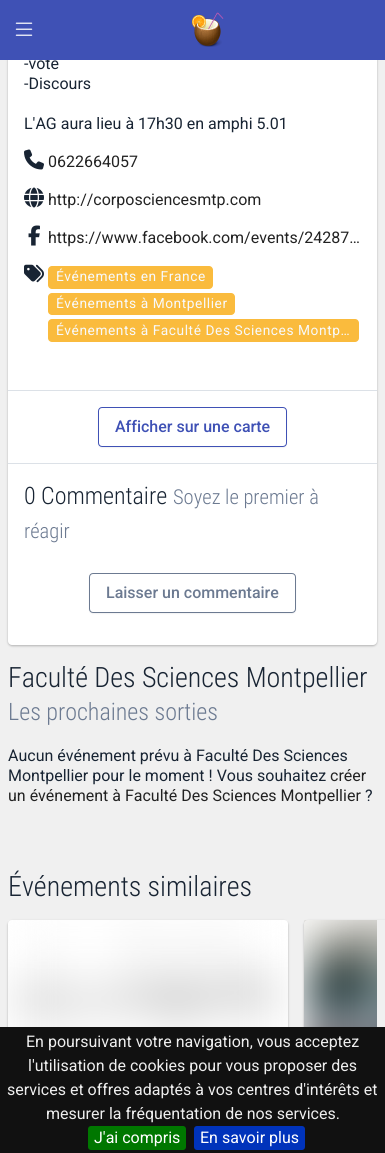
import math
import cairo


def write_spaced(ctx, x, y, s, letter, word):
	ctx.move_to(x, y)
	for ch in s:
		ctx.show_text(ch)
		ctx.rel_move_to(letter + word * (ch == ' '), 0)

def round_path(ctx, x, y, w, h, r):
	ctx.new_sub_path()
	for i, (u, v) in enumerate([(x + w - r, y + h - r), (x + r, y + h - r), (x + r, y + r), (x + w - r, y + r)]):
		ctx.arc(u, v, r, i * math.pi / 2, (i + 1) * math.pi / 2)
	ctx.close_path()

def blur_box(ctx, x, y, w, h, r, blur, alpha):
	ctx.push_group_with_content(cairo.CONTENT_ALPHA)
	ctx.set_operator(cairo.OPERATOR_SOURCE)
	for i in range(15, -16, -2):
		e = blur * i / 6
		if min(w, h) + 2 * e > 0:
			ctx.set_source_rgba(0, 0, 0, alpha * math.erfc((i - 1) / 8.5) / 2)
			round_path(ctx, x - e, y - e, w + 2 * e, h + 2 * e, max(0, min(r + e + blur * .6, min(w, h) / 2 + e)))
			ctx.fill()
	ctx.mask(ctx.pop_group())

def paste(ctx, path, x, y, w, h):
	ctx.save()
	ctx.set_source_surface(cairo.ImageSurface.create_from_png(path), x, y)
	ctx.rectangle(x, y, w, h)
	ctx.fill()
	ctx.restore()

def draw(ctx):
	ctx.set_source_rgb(0.941, 0.941, 0.941)
	ctx.paint()
	ctx.set_source_rgb(0.702, 0.702, 0.702)
	blur_box(ctx, 8, -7, 369, 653, 4, 1, 1)
	ctx.set_source_rgb(1, 1, 1)
	round_path(ctx, 8, -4, 369, 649, 4)
	ctx.fill()
	ctx.select_font_face('Roboto')
	ctx.set_font_size(16)
	ctx.set_source_rgb(0.094, 0.141, 0.2)
	ctx.move_to(24, 69)
	ctx.show_text('-vote')
	ctx.set_source_rgb(0.247, 0.318, 0.71)
	ctx.rectangle(0, 0, 385, 60)
	ctx.fill()
	paste(ctx, 'media/1.png', 15, 22, 18, 14)
	paste(ctx, 'media/2.png', 192, 12, 32, 35)
	ctx.set_source_rgb(0.094, 0.141, 0.2)
	ctx.move_to(24, 89)
	ctx.show_text('-Discours')
	ctx.move_to(24, 129)
	ctx.show_text('L\'AG aura lieu à 17h30 en amphi 5.01')
	paste(ctx, 'media/3.png', 24, 149, 20, 21)
	ctx.set_source_rgb(0.133, 0.133, 0.133)
	ctx.move_to(48, 167)
	ctx.show_text('0622664057')
	paste(ctx, 'media/4.png', 24, 187, 20, 21)
	ctx.move_to(48, 205)
	ctx.show_text('http://corposciencesmtp.com')
	paste(ctx, 'media/5.png', 28, 225, 12, 21)
	ctx.move_to(48, 243)
	ctx.show_text('https://www.facebook.com/events/24287…')
	paste(ctx, 'media/6.png', 24, 264, 20, 19)
	ctx.set_source_rgb(0.98, 0.733, 0.239)
	round_path(ctx, 48, 266, 165, 23, 4)
	ctx.fill()
	ctx.set_font_size(13.75)
	ctx.set_source_rgb(0.965, 0.973, 0.984)
	write_spaced(ctx, 56, 281, 'Événements en France', 0.55, 0)
	ctx.set_source_rgb(0.98, 0.733, 0.239)
	round_path(ctx, 48, 293, 187, 22, 4)
	ctx.fill()
	ctx.set_source_rgb(0.965, 0.973, 0.984)
	write_spaced(ctx, 56, 308, 'Événements à Montpellier', 0.55, 0)
	ctx.set_source_rgb(0.98, 0.733, 0.239)
	round_path(ctx, 48, 319, 311, 23, 4)
	ctx.fill()
	ctx.set_source_rgb(0.965, 0.973, 0.984)
	write_spaced(ctx, 56, 335, 'Événements à Faculté Des Sciences Montp…', 0.55, 0)
	ctx.set_source_rgb(0.863, 0.882, 0.906)
	ctx.rectangle(8, 390, 369, 1)
	ctx.fill()
	ctx.save()
	ctx.set_fill_rule(cairo.FILL_RULE_EVEN_ODD)
	ctx.new_path()
	ctx.move_to(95, 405)
	ctx.line_to(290, 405)
	ctx.line_to(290, 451)
	ctx.line_to(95, 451)
	ctx.close_path()
	ctx.move_to(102, 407)
	ctx.line_to(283, 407)
	ctx.curve_to(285, 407, 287, 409, 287, 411)
	ctx.line_to(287, 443)
	ctx.curve_to(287, 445, 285, 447, 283, 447)
	ctx.line_to(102, 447)
	ctx.curve_to(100, 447, 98, 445, 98, 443)
	ctx.line_to(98, 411)
	ctx.curve_to(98, 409, 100, 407, 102, 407)
	ctx.close_path()
	ctx.clip()
	ctx.set_source_rgb(0.094, 0.141, 0.2)
	blur_box(ctx, 98, 408, 189, 40, 4, 0.5, 0.06)
	ctx.restore()
	round_path(ctx, 98.5, 407.5, 188, 39, 3.5)
	ctx.set_source_rgb(0.247, 0.318, 0.71)
	ctx.set_line_width(1)
	ctx.stroke()
	ctx.select_font_face('Roboto Medium')
	ctx.set_font_size(16)
	ctx.move_to(115, 432)
	ctx.show_text('Afficher sur une carte')
	ctx.set_source_rgb(0.863, 0.882, 0.906)
	ctx.rectangle(8, 463, 369, 1)
	ctx.fill()
	ctx.select_font_face('Roboto Condensed Light')
	ctx.set_font_size(24)
	ctx.set_source_rgb(0.094, 0.141, 0.2)
	ctx.move_to(24, 504)
	ctx.show_text('0 Commentaire')
	ctx.set_font_size(20.5)
	ctx.set_source_rgb(0.424, 0.478, 0.569)
	ctx.move_to(173, 504)
	ctx.show_text('Soyez le premier à')
	ctx.move_to(24, 538)
	ctx.show_text('réagir')
	ctx.save()
	ctx.set_fill_rule(cairo.FILL_RULE_EVEN_ODD)
	ctx.new_path()
	ctx.move_to(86, 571)
	ctx.line_to(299, 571)
	ctx.line_to(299, 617)
	ctx.line_to(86, 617)
	ctx.close_path()
	ctx.move_to(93, 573)
	ctx.line_to(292, 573)
	ctx.curve_to(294, 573, 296, 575, 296, 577)
	ctx.line_to(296, 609)
	ctx.curve_to(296, 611, 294, 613, 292, 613)
	ctx.line_to(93, 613)
	ctx.curve_to(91, 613, 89, 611, 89, 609)
	ctx.line_to(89, 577)
	ctx.curve_to(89, 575, 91, 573, 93, 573)
	ctx.close_path()
	ctx.clip()
	ctx.set_source_rgb(0.094, 0.141, 0.2)
	blur_box(ctx, 89, 574, 207, 40, 4, 0.5, 0.06)
	ctx.restore()
	round_path(ctx, 89.5, 573.5, 206, 39, 3.5)
	ctx.stroke()
	ctx.select_font_face('Roboto Medium')
	ctx.set_font_size(16)
	ctx.move_to(106, 598)
	ctx.show_text('Laisser un commentaire')
	ctx.select_font_face('Roboto Condensed Light')
	ctx.set_font_size(28)
	ctx.set_source_rgb(0.094, 0.141, 0.2)
	ctx.move_to(8, 687)
	ctx.show_text('Faculté Des Sciences Montpellier')
	ctx.set_font_size(24)
	ctx.set_source_rgb(0.424, 0.478, 0.569)
	ctx.move_to(8, 720)
	ctx.show_text('Les prochaines sorties')
	ctx.select_font_face('Roboto')
	ctx.set_font_size(16)
	ctx.set_source_rgb(0.094, 0.141, 0.2)
	ctx.move_to(8, 761)
	ctx.show_text('Aucun événement prévu à Faculté Des Sciences')
	ctx.move_to(8, 781)
	ctx.show_text('Montpellier pour le moment ! Vous souhaitez')
	ctx.set_source_rgb(0.133, 0.133, 0.133)
	ctx.move_to(330, 781)
	ctx.show_text('créer')
	ctx.move_to(8, 801)
	ctx.show_text('un événement à Faculté Des Sciences Montpellier')
	ctx.set_source_rgb(0.094, 0.141, 0.2)
	ctx.move_to(365, 801)
	ctx.show_text('?')
	ctx.select_font_face('Roboto Condensed Light')
	ctx.set_font_size(28)
	ctx.move_to(8, 896)
	ctx.show_text('Événements similaires')
	ctx.set_source_rgb(0.702, 0.702, 0.702)
	blur_box(ctx, 8, 921, 280, 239, 4, 1, 1)
	ctx.set_source_rgb(1, 1, 1)
	round_path(ctx, 8, 920, 280, 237, 4)
	ctx.fill()
	paste(ctx, 'media/7.png', 8, 920, 280, 107)
	ctx.save()
	ctx.set_fill_rule(cairo.FILL_RULE_EVEN_ODD)
	ctx.new_path()
	ctx.move_to(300, 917)
	ctx.line_to(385, 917)
	ctx.line_to(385, 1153)
	ctx.line_to(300, 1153)
	ctx.close_path()
	ctx.move_to(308, 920)
	ctx.line_to(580, 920)
	ctx.curve_to(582, 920, 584, 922, 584, 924)
	ctx.line_to(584, 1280)
	ctx.curve_to(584, 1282, 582, 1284, 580, 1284)
	ctx.line_to(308, 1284)
	ctx.curve_to(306, 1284, 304, 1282, 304, 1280)
	ctx.line_to(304, 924)
	ctx.curve_to(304, 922, 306, 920, 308, 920)
	ctx.close_path()
	ctx.clip()
	ctx.set_source_rgb(0.702, 0.702, 0.702)
	blur_box(ctx, 304, 921, 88, 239, 4, 1, 1)
	ctx.restore()
	ctx.new_path()
	ctx.move_to(308, 920)
	ctx.line_to(377, 920)
	ctx.line_to(377, 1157)
	ctx.line_to(308, 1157)
	ctx.curve_to(306, 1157, 304, 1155, 304, 1153)
	ctx.line_to(304, 924)
	ctx.curve_to(304, 922, 306, 920, 308, 920)
	ctx.close_path()
	ctx.fill()
	paste(ctx, 'media/8.png', 304, 920, 73, 107)
	ctx.set_source_rgb(0.067, 0.067, 0.067)
	ctx.rectangle(0, 1027, 385, 126)
	ctx.fill()
	ctx.select_font_face('Roboto')
	ctx.set_font_size(16)
	ctx.set_source_rgb(0.933, 0.933, 0.933)
	for x, y, s in [
		(26, 1047, 'En poursuivant votre navigation, vous acceptez'),
		(28, 1071, 'l\'utilisation de cookies pour vous proposer des'),
		(7, 1095, 'services et offres adaptés à vos centres d\'intérêts et'),
		(46, 1119, 'mesurer la fréquentation de nos services.'),
	]:
		ctx.move_to(x, y)
		ctx.show_text(s)
	ctx.set_source_rgb(0, 0.467, 0)
	round_path(ctx, 88, 1126, 98, 24, 3)
	ctx.fill()
	ctx.set_source_rgb(1, 1, 1)
	ctx.move_to(94, 1143)
	ctx.show_text('J\'ai compris')
	ctx.set_source_rgb(0, 0.2, 0.733)
	round_path(ctx, 194, 1126, 111, 24, 3)
	ctx.fill()
	ctx.set_source_rgb(1, 1, 1)
	ctx.move_to(200, 1143)
	ctx.show_text('En savoir plus')


surface = cairo.ImageSurface(cairo.FORMAT_RGB24, 385, 1153)
ctx = cairo.Context(surface)
options = cairo.FontOptions()
options.set_hint_metrics(cairo.HINT_METRICS_OFF)
options.set_hint_style(cairo.HINT_STYLE_NONE)
ctx.set_font_options(options)
ctx.set_miter_limit(4)
draw(ctx)
surface.write_to_png('image.png')
